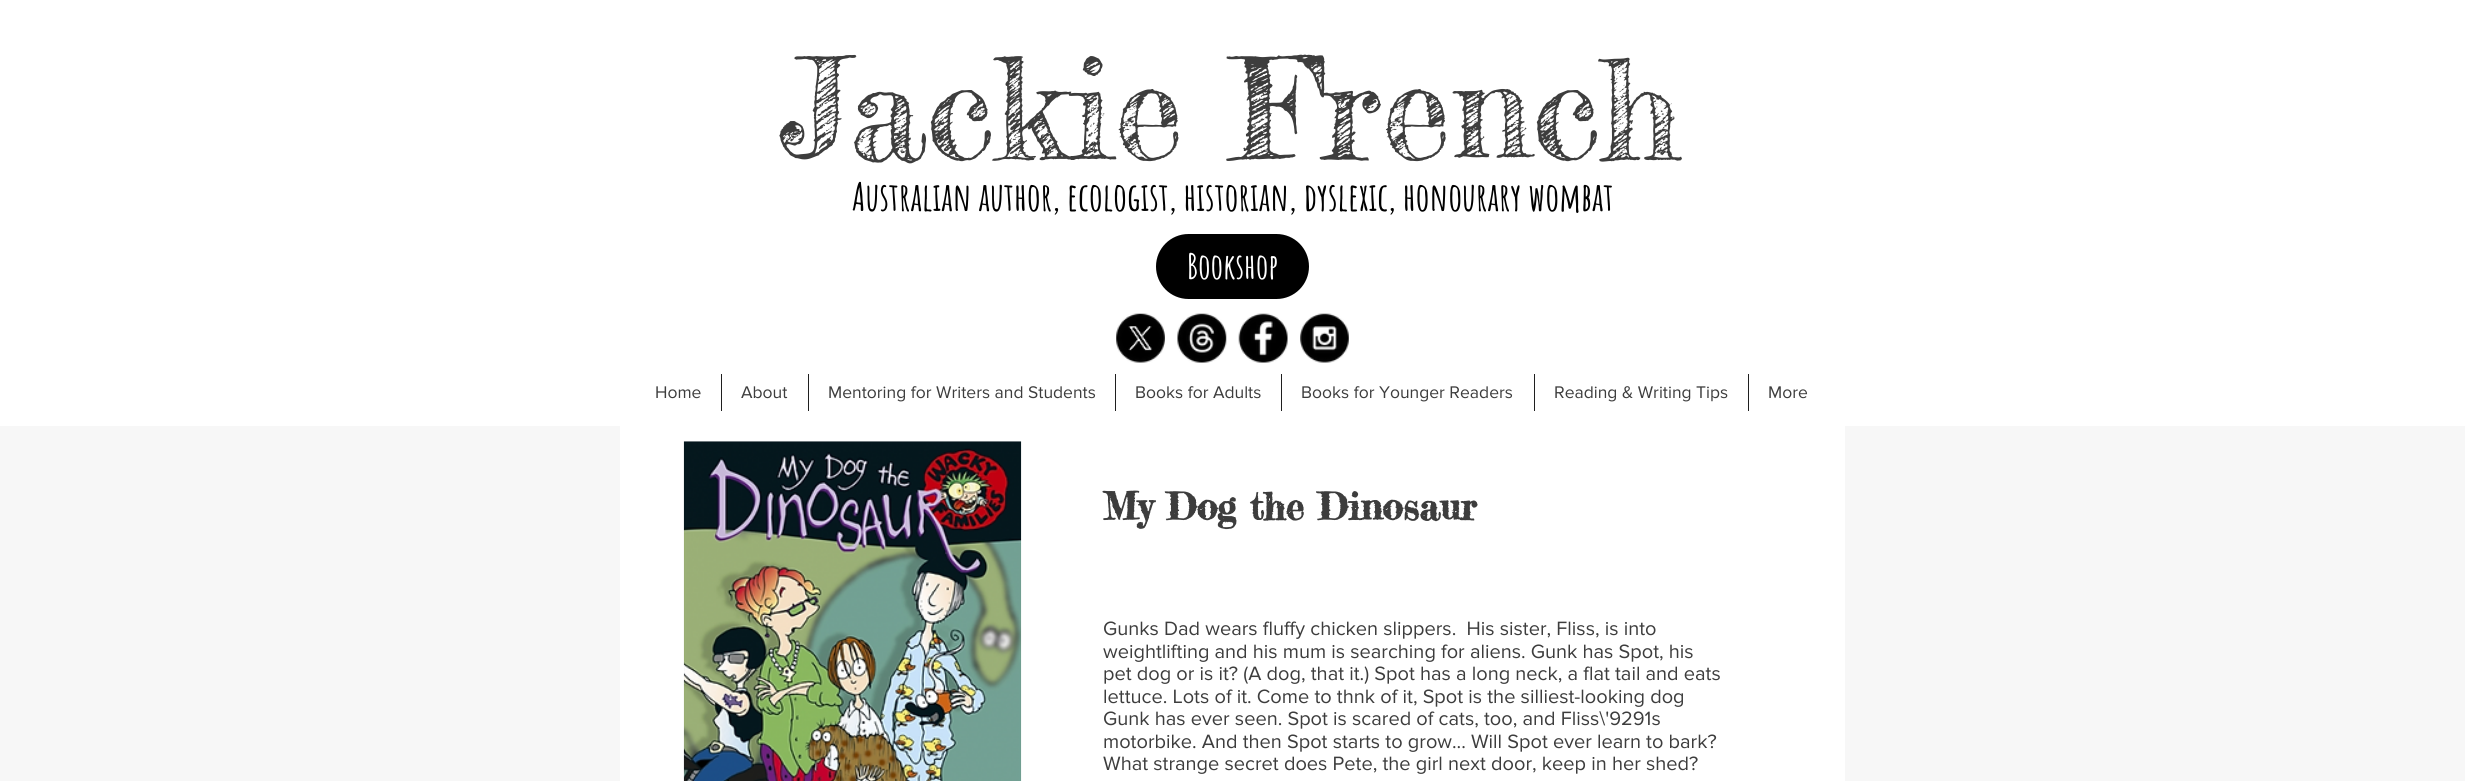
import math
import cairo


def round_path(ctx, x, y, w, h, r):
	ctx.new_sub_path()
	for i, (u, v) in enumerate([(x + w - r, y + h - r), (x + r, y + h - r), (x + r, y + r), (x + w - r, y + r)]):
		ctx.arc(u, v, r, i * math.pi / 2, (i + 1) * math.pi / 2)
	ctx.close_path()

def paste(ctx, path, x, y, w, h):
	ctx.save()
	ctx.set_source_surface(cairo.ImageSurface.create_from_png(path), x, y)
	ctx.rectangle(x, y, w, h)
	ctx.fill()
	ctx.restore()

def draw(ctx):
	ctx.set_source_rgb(0.965, 0.965, 0.965)
	ctx.paint()
	ctx.set_source_rgb(1, 1, 1)
	ctx.rectangle(0, 0, 2465, 426)
	ctx.fill()
	ctx.select_font_face('Fredericka the Great')
	ctx.set_font_size(138.75)
	ctx.set_source_rgb(0.239, 0.239, 0.239)
	ctx.move_to(780, 159)
	ctx.show_text('Jackie French')
	ctx.select_font_face('Amatic SC', cairo.FONT_SLANT_NORMAL, cairo.FONT_WEIGHT_BOLD)
	ctx.set_font_size(38.75)
	ctx.set_source_rgb(0, 0, 0)
	ctx.move_to(852, 211)
	ctx.show_text('Australian author, ecologist, historian, dyslexic, honourary wombat')
	round_path(ctx, 1157.5, 235.5, 150, 62, 31)
	ctx.fill_preserve()
	ctx.set_line_width(3)
	ctx.stroke()
	ctx.set_font_size(35)
	ctx.set_source_rgb(1, 1, 1)
	ctx.move_to(1187, 279)
	ctx.show_text('Bookshop')
	paste(ctx, 'media/1.png', 1116, 313, 49, 50)
	paste(ctx, 'media/2.png', 1177, 313, 50, 50)
	paste(ctx, 'media/3.png', 1238, 313, 50, 50)
	paste(ctx, 'media/4.png', 1300, 313, 49, 50)
	ctx.select_font_face('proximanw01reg')
	ctx.set_font_size(17.5)
	ctx.set_source_rgb(0.239, 0.239, 0.239)
	ctx.move_to(655, 398)
	ctx.show_text('Home')
	ctx.set_source_rgb(0.122, 0.122, 0.122)
	ctx.rectangle(721, 374, 1, 37)
	ctx.fill()
	ctx.set_source_rgb(0.239, 0.239, 0.239)
	ctx.move_to(741, 398)
	ctx.show_text('About')
	ctx.set_source_rgb(0.122, 0.122, 0.122)
	ctx.rectangle(808, 374, 1, 37)
	ctx.fill()
	ctx.set_source_rgb(0.239, 0.239, 0.239)
	ctx.move_to(828, 398)
	ctx.show_text('Mentoring for Writers and Students')
	ctx.set_source_rgb(0.122, 0.122, 0.122)
	ctx.rectangle(1115, 374, 1, 37)
	ctx.fill()
	ctx.set_source_rgb(0.239, 0.239, 0.239)
	ctx.move_to(1135, 398)
	ctx.show_text('Books for Adults')
	ctx.set_source_rgb(0.122, 0.122, 0.122)
	ctx.rectangle(1281, 374, 1, 37)
	ctx.fill()
	ctx.set_source_rgb(0.239, 0.239, 0.239)
	ctx.move_to(1301, 398)
	ctx.show_text('Books for Younger Readers')
	ctx.set_source_rgb(0.122, 0.122, 0.122)
	ctx.rectangle(1534, 374, 1, 37)
	ctx.fill()
	ctx.set_source_rgb(0.239, 0.239, 0.239)
	ctx.move_to(1554, 398)
	ctx.show_text('Reading & Writing Tips')
	ctx.set_source_rgb(0.122, 0.122, 0.122)
	ctx.rectangle(1748, 374, 1, 37)
	ctx.fill()
	ctx.set_source_rgb(0.239, 0.239, 0.239)
	ctx.move_to(1768, 398)
	ctx.show_text('More')
	ctx.set_source_rgb(1, 1, 1)
	ctx.rectangle(620, 426, 1225, 355)
	ctx.fill()
	paste(ctx, 'media/5.png', 683, 441, 339, 340)
	ctx.select_font_face('Fredericka the Great', cairo.FONT_SLANT_NORMAL, cairo.FONT_WEIGHT_BOLD)
	ctx.set_font_size(37.5)
	ctx.set_source_rgb(0.239, 0.239, 0.239)
	ctx.move_to(1103, 520)
	ctx.show_text('My Dog the Dinosaur')
	ctx.select_font_face('proximanw01reg')
	ctx.set_font_size(20)
	for x, y, s in [
		(1103, 635, 'Gunks Dad wears fluffy chicken slippers.  His sister, Fliss, is into'),
		(1103, 658, 'weightlifting and his mum is searching for aliens. Gunk has Spot, his'),
		(1103, 680, 'pet dog or is it? (A dog, that it.) Spot has a long neck, a flat tail and eats'),
		(1103, 703, 'lettuce. Lots of it. Come to thnk of it, Spot is the silliest-looking dog'),
		(1103, 725, 'Gunk has ever seen. Spot is scared of cats, too, and Fliss\\\'9291s'),
		(1103, 748, 'motorbike. And then Spot starts to grow... Will Spot ever learn to bark?'),
		(1103, 770, 'What strange secret does Pete, the girl next door, keep in her shed?'),
	]:
		ctx.move_to(x, y)
		ctx.show_text(s)


surface = cairo.ImageSurface(cairo.FORMAT_RGB24, 2465, 781)
ctx = cairo.Context(surface)
options = cairo.FontOptions()
options.set_hint_metrics(cairo.HINT_METRICS_OFF)
options.set_hint_style(cairo.HINT_STYLE_NONE)
ctx.set_font_options(options)
ctx.set_miter_limit(4)
draw(ctx)
surface.write_to_png('image.png')
